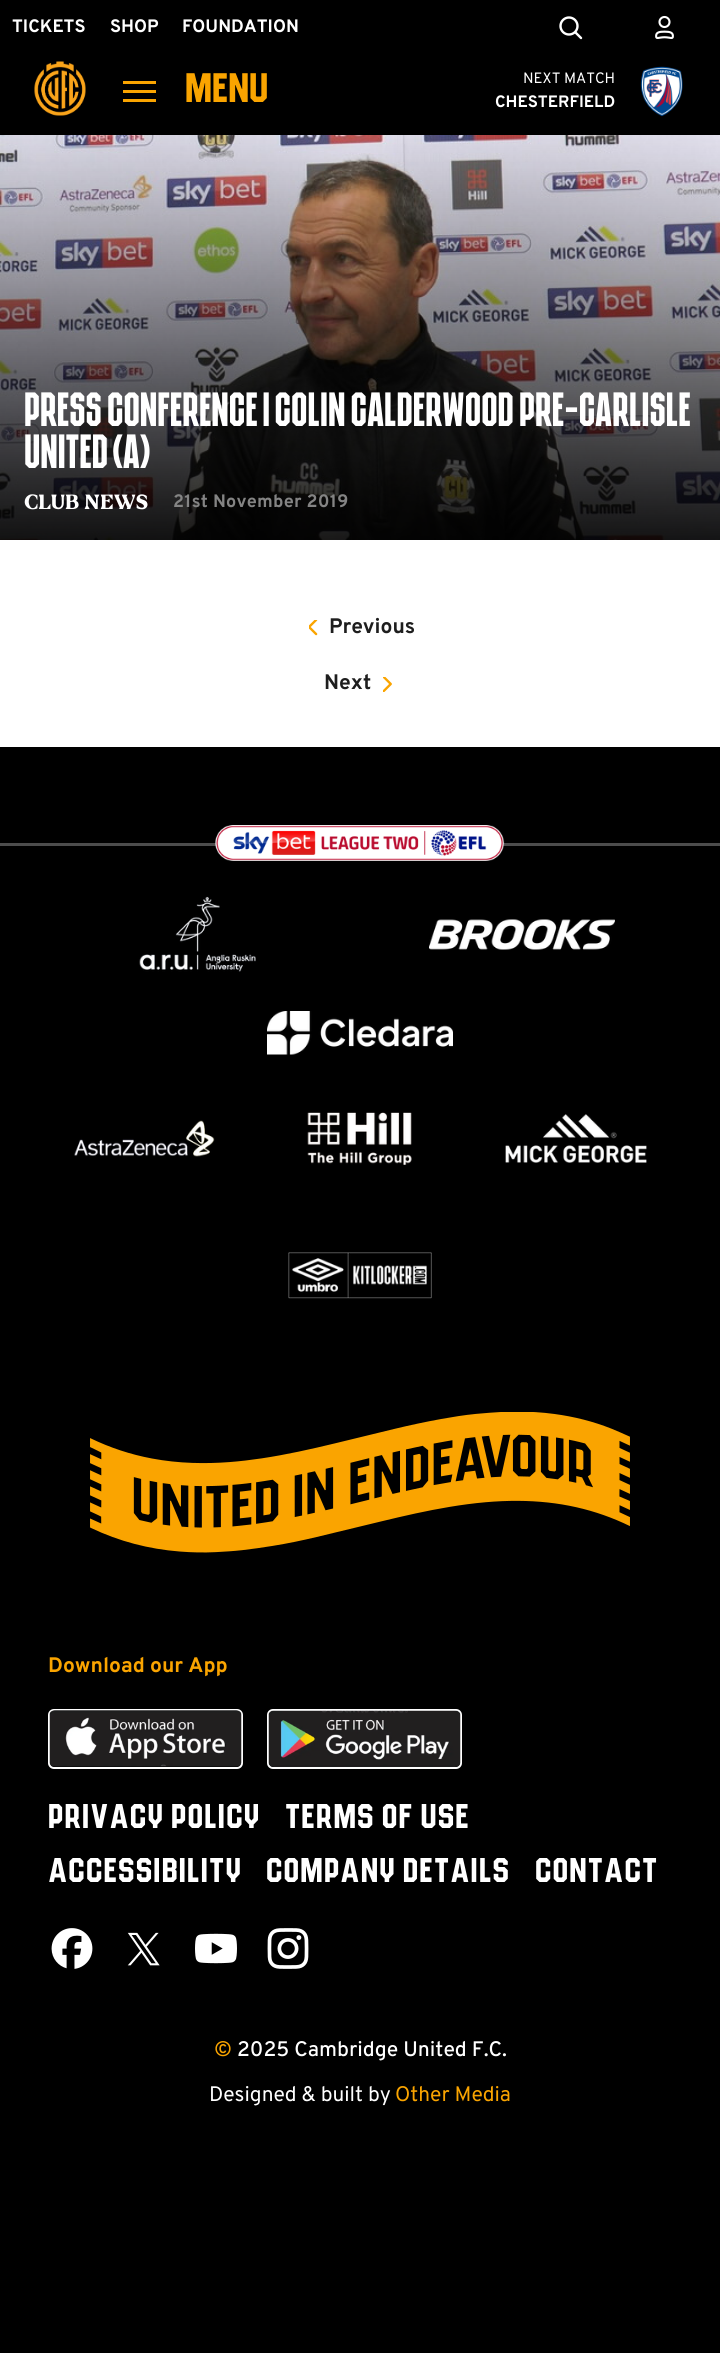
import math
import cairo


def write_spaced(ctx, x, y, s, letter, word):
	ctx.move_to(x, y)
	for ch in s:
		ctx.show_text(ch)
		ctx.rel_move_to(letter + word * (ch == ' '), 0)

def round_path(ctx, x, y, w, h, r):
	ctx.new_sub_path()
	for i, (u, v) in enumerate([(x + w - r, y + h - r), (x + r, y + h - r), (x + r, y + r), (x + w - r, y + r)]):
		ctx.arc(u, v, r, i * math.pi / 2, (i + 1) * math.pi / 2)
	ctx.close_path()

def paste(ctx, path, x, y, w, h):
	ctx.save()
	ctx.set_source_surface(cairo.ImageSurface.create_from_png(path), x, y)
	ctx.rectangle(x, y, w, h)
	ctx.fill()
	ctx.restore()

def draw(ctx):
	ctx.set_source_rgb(0, 0, 0)
	ctx.paint()
	ctx.select_font_face('Overpass', cairo.FONT_SLANT_NORMAL, cairo.FONT_WEIGHT_BOLD)
	ctx.set_font_size(18)
	ctx.set_source_rgb(1, 1, 1)
	for x, y, s in [
		(12, 32, 'TICKETS'),
		(110, 32, 'SHOP'),
		(182, 32, 'FOUNDATION'),
	]:
		ctx.move_to(x, y)
		ctx.show_text(s)
	ctx.new_path()
	ctx.arc(569, 26, 8.5, 0, 2 * math.pi)
	ctx.set_line_width(2.4)
	ctx.stroke()
	ctx.new_path()
	ctx.move_to(575.5, 32.5)
	ctx.line_to(581, 38)
	ctx.set_line_cap(cairo.LINE_CAP_ROUND)
	ctx.stroke()
	paste(ctx, 'media/1.png', 655, 15, 19, 24)
	paste(ctx, 'media/2.png', 34, 61, 52, 55)
	ctx.set_source_rgb(0.98, 0.643, 0)
	ctx.rectangle(123, 90, 33, 3)
	ctx.rectangle(123, 81, 33, 3)
	ctx.rectangle(123, 99, 33, 3)
	ctx.fill()
	ctx.select_font_face('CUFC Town')
	ctx.set_font_size(36)
	ctx.move_to(185, 102)
	ctx.show_text('MENU')
	ctx.select_font_face('Overpass')
	ctx.set_font_size(15)
	ctx.set_source_rgb(1, 1, 1)
	ctx.move_to(523, 83)
	ctx.show_text('NEXT MATCH')
	ctx.select_font_face('Overpass', cairo.FONT_SLANT_NORMAL, cairo.FONT_WEIGHT_BOLD)
	ctx.set_font_size(16.5)
	ctx.move_to(495, 107)
	ctx.show_text('CHESTERFIELD')
	paste(ctx, 'media/3.png', 640, 66, 43, 51)
	paste(ctx, 'media/4.png', 0, 135, 720, 405)
	ctx.select_font_face('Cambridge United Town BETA')
	ctx.set_font_size(42)
	ctx.move_to(24, 426)
	ctx.show_text('PRESS CONFERENCE | COLIN CALDERWOOD PRE-CARLISLE')
	ctx.move_to(24, 468)
	ctx.show_text('UNITED (A)')
	ctx.select_font_face('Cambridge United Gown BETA')
	ctx.set_font_size(18)
	write_spaced(ctx, 24, 509, 'Club News', 0.25, 0)
	ctx.select_font_face('Overpass', cairo.FONT_SLANT_NORMAL, cairo.FONT_WEIGHT_BOLD)
	ctx.set_source_rgb(0.518, 0.518, 0.518)
	write_spaced(ctx, 173, 507, '21st November 2019', 0.25, 0)
	ctx.set_source_rgb(1, 1, 1)
	ctx.rectangle(0, 540, 720, 207)
	ctx.fill()
	paste(ctx, 'media/5.png', 309, 620, 9, 16)
	ctx.set_font_size(21)
	ctx.set_source_rgb(0.118, 0.118, 0.118)
	ctx.move_to(329, 633)
	ctx.show_text('Previous')
	ctx.move_to(324, 689)
	ctx.show_text('Next')
	paste(ctx, 'media/6.png', 383, 677, 9, 15)
	ctx.set_source_rgb(0.298, 0.298, 0.298)
	ctx.rectangle(0, 843, 720, 3)
	ctx.fill()
	paste(ctx, 'media/7.png', 215, 825, 290, 36)
	paste(ctx, 'media/8.png', 139, 896, 117, 76)
	paste(ctx, 'media/9.png', 429, 919, 186, 31)
	paste(ctx, 'media/10.png', 267, 1011, 186, 44)
	paste(ctx, 'media/11.png', 74, 1120, 141, 37)
	paste(ctx, 'media/12.png', 307, 1112, 105, 53)
	paste(ctx, 'media/13.png', 505, 1114, 142, 49)
	paste(ctx, 'media/14.png', 288, 1252, 144, 47)
	paste(ctx, 'media/15.png', 90, 1412, 540, 141)
	ctx.set_source_rgb(0.98, 0.643, 0)
	ctx.move_to(48, 1672)
	ctx.show_text('Download our App')
	round_path(ctx, 49, 1710, 193, 58, 5)
	ctx.set_source_rgb(1, 1, 1)
	ctx.set_line_width(2)
	ctx.set_line_cap(cairo.LINE_CAP_BUTT)
	ctx.stroke()
	paste(ctx, 'media/16.png', 49, 1710, 193, 57)
	round_path(ctx, 268, 1710, 193, 58, 5)
	ctx.stroke()
	paste(ctx, 'media/17.png', 268, 1710, 193, 57)
	ctx.select_font_face('CUFC Town')
	ctx.set_font_size(30)
	for x, y, s in [
		(48, 1828, 'PRIVACY POLICY'),
		(285, 1828, 'TERMS OF USE'),
		(48, 1882, 'ACCESSIBILITY'),
		(266, 1882, 'COMPANY DETAILS'),
		(535, 1882, 'CONTACT'),
	]:
		write_spaced(ctx, x, y, s, 1.1, 0)
	paste(ctx, 'media/18.png', 51, 1928, 42, 41)
	paste(ctx, 'media/19.png', 127, 1932, 33, 34)
	paste(ctx, 'media/20.png', 195, 1933, 42, 31)
	paste(ctx, 'media/21.png', 267, 1928, 42, 41)
	ctx.select_font_face('Overpass Medium')
	ctx.set_font_size(21)
	ctx.set_source_rgb(0.98, 0.643, 0)
	ctx.move_to(214, 2056)
	ctx.show_text('©')
	ctx.set_source_rgb(1, 1, 1)
	ctx.move_to(237, 2056)
	ctx.show_text('2025 Cambridge United F.C.')
	ctx.select_font_face('Overpass')
	ctx.move_to(209, 2101)
	ctx.show_text('Designed & built by')
	ctx.set_source_rgb(0.98, 0.643, 0)
	ctx.move_to(395, 2101)
	ctx.show_text('Other Media')


surface = cairo.ImageSurface(cairo.FORMAT_RGB24, 720, 2353)
ctx = cairo.Context(surface)
options = cairo.FontOptions()
options.set_hint_metrics(cairo.HINT_METRICS_OFF)
options.set_hint_style(cairo.HINT_STYLE_NONE)
ctx.set_font_options(options)
ctx.set_miter_limit(4)
draw(ctx)
surface.write_to_png('image.png')
